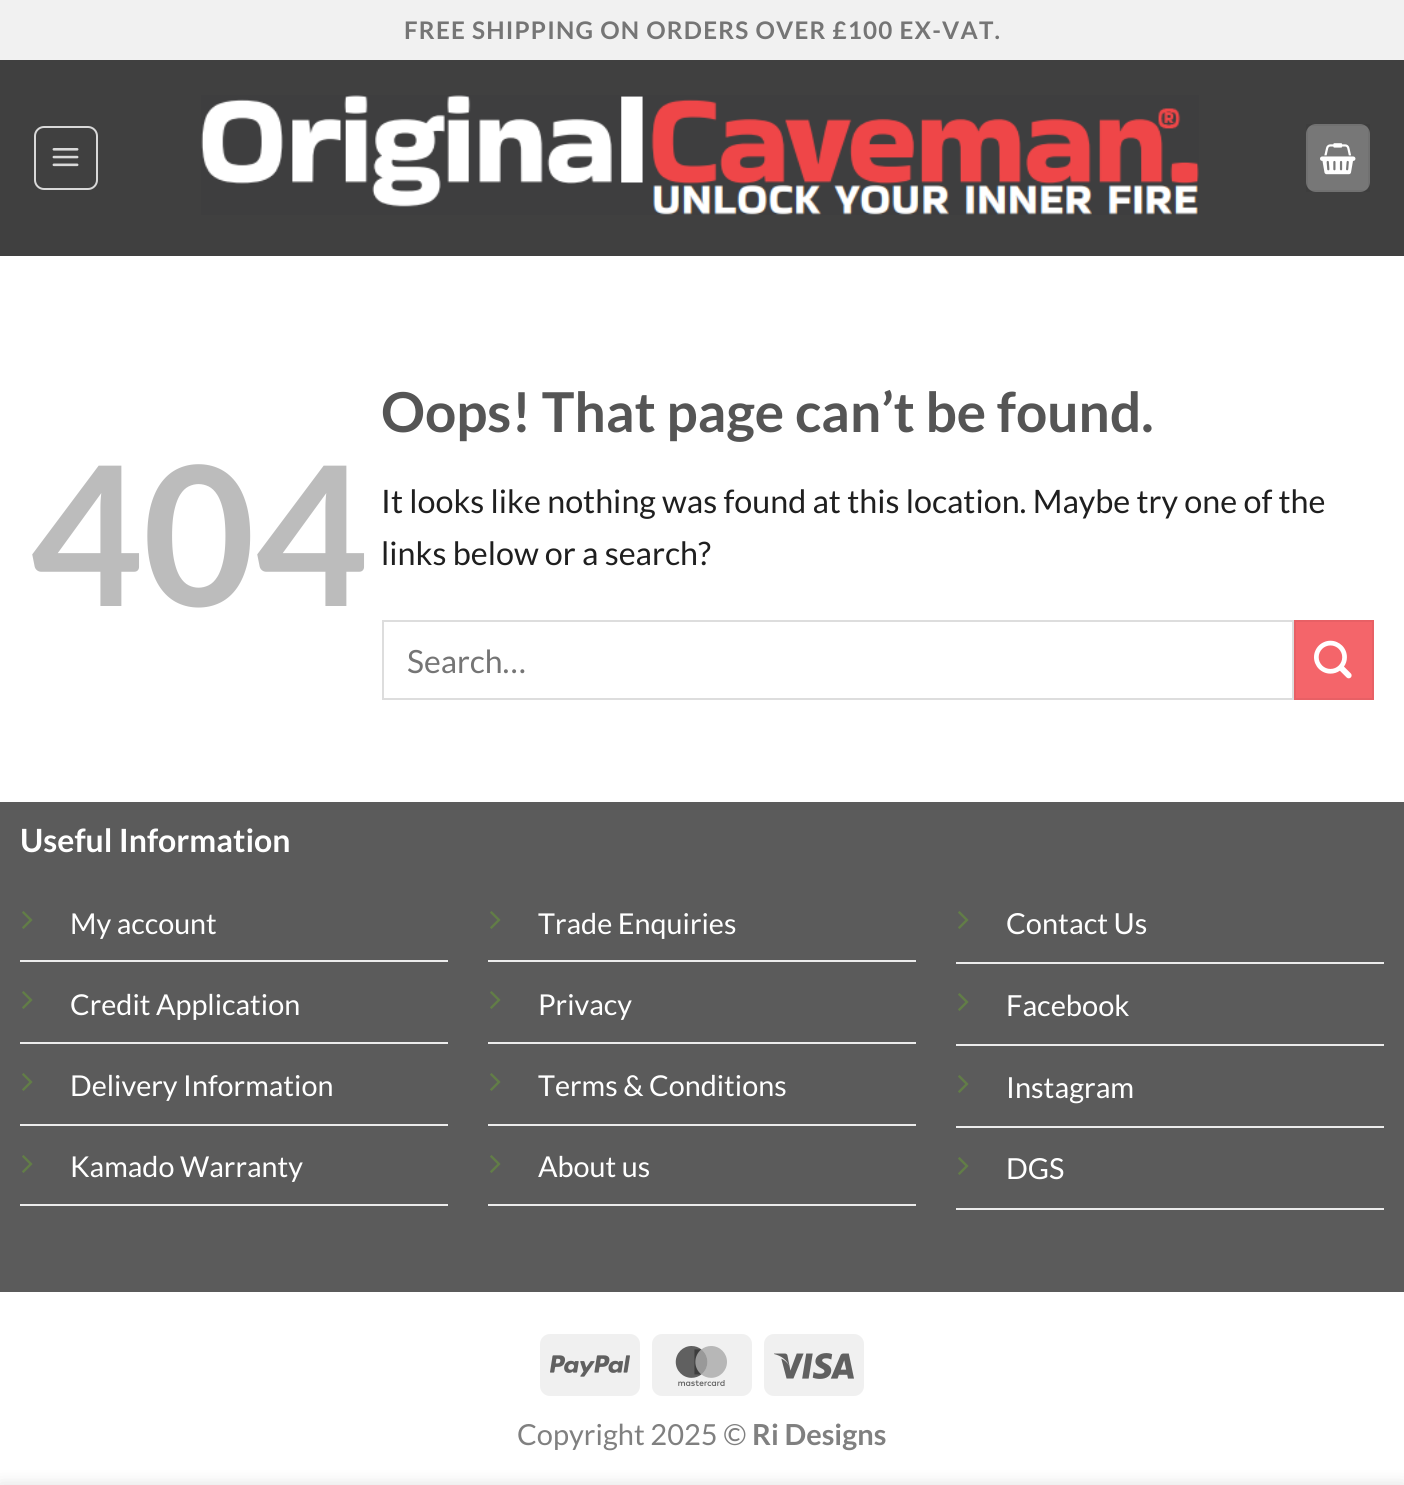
import math
import cairo


def write_spaced(ctx, x, y, s, letter, word):
	ctx.move_to(x, y)
	for ch in s:
		ctx.show_text(ch)
		ctx.rel_move_to(letter + word * (ch == ' '), 0)

def round_path(ctx, x, y, w, h, r):
	ctx.new_sub_path()
	for i, (u, v) in enumerate([(x + w - r, y + h - r), (x + r, y + h - r), (x + r, y + r), (x + w - r, y + r)]):
		ctx.arc(u, v, r, i * math.pi / 2, (i + 1) * math.pi / 2)
	ctx.close_path()

def blur_box(ctx, x, y, w, h, r, blur, alpha):
	ctx.push_group_with_content(cairo.CONTENT_ALPHA)
	ctx.set_operator(cairo.OPERATOR_SOURCE)
	for i in range(15, -16, -2):
		e = blur * i / 6
		if min(w, h) + 2 * e > 0:
			ctx.set_source_rgba(0, 0, 0, alpha * math.erfc((i - 1) / 8.5) / 2)
			round_path(ctx, x - e, y - e, w + 2 * e, h + 2 * e, max(0, min(r + e + blur * .6, min(w, h) / 2 + e)))
			ctx.fill()
	ctx.mask(ctx.pop_group())

def paste(ctx, path, x, y, w, h):
	ctx.save()
	ctx.set_source_surface(cairo.ImageSurface.create_from_png(path), x, y)
	ctx.rectangle(x, y, w, h)
	ctx.fill()
	ctx.restore()

def draw(ctx):
	ctx.set_source_rgb(1, 1, 1)
	ctx.paint()
	ctx.set_source_rgb(0.945, 0.945, 0.945)
	ctx.rectangle(0, 0, 1404, 60)
	ctx.fill()
	ctx.select_font_face('Lato', cairo.FONT_SLANT_NORMAL, cairo.FONT_WEIGHT_BOLD)
	ctx.set_font_size(24.25)
	ctx.set_source_rgb(0.459, 0.459, 0.459)
	write_spaced(ctx, 404, 39, 'FREE SHIPPING ON ORDERS OVER £100 EX-VAT.', 1.2, 0)
	ctx.set_source_rgb(0.251, 0.251, 0.251)
	ctx.rectangle(0, 60, 1404, 196)
	ctx.fill()
	round_path(ctx, 35, 127, 62, 62, 9)
	ctx.set_source_rgb(0.851, 0.851, 0.851)
	ctx.stroke()
	paste(ctx, 'media/1.png', 52, 148, 27, 19)
	paste(ctx, 'media/2.png', 201, 95, 998, 120)
	ctx.set_source_rgb(0.467, 0.467, 0.467)
	round_path(ctx, 1306, 124, 64, 68, 10)
	ctx.fill()
	ctx.rectangle(1307, 125, 62, 66)
	ctx.set_source_rgba(0, 0, 0, 0.05)
	ctx.stroke()
	paste(ctx, 'media/3.png', 1320, 143, 36, 32)
	ctx.set_font_size(194)
	ctx.set_source_rgb(0.737, 0.737, 0.737)
	ctx.move_to(30, 606)
	ctx.show_text('404')
	ctx.set_font_size(55)
	ctx.set_source_rgb(0.333, 0.333, 0.333)
	ctx.move_to(381, 432)
	ctx.show_text('Oops! That page can’t be found.')
	ctx.select_font_face('Lato')
	ctx.set_font_size(32.3)
	ctx.set_source_rgb(0.122, 0.122, 0.122)
	ctx.move_to(381, 513)
	ctx.show_text('It looks like nothing was found at this location. Maybe try one of the')
	ctx.move_to(381, 565)
	ctx.show_text('links below or a search?')
	ctx.rectangle(383, 621, 910, 78)
	ctx.set_source_rgb(0.867, 0.867, 0.867)
	ctx.stroke()
	ctx.set_font_size(32)
	ctx.set_source_rgb(0.459, 0.459, 0.459)
	ctx.move_to(407, 673)
	ctx.show_text('Search…')
	ctx.set_source_rgb(0.957, 0.396, 0.416)
	ctx.rectangle(1295, 621, 78, 78)
	ctx.fill_preserve()
	ctx.set_source_rgb(0.91, 0.376, 0.396)
	ctx.stroke()
	paste(ctx, 'media/4.png', 1314, 640, 38, 39)
	ctx.set_source_rgb(0.357, 0.357, 0.357)
	ctx.rectangle(0, 802, 1404, 2)
	ctx.fill()
	ctx.rectangle(0, 804, 1404, 488)
	ctx.fill()
	ctx.select_font_face('Lato', cairo.FONT_SLANT_NORMAL, cairo.FONT_WEIGHT_BOLD)
	ctx.set_source_rgb(1, 1, 1)
	ctx.move_to(20, 852)
	ctx.show_text('Useful Information')
	ctx.set_source_rgb(0.925, 0.925, 0.925)
	ctx.rectangle(20, 960, 428, 2)
	ctx.fill()
	paste(ctx, 'media/5.png', 22, 911, 11, 18)
	ctx.select_font_face('Lato')
	ctx.set_font_size(28.75)
	ctx.set_source_rgb(1, 1, 1)
	ctx.move_to(70, 934)
	ctx.show_text('My account')
	ctx.set_source_rgb(0.925, 0.925, 0.925)
	ctx.rectangle(20, 1042, 428, 2)
	ctx.fill()
	paste(ctx, 'media/5.png', 22, 991, 11, 18)
	ctx.set_source_rgb(1, 1, 1)
	ctx.move_to(70, 1015)
	ctx.show_text('Credit Application')
	ctx.set_source_rgb(0.925, 0.925, 0.925)
	ctx.rectangle(20, 1124, 428, 2)
	ctx.fill()
	paste(ctx, 'media/5.png', 22, 1073, 11, 18)
	ctx.set_source_rgb(1, 1, 1)
	ctx.move_to(70, 1096)
	ctx.show_text('Delivery Information')
	ctx.set_source_rgb(0.925, 0.925, 0.925)
	ctx.rectangle(20, 1204, 428, 2)
	ctx.fill()
	paste(ctx, 'media/5.png', 22, 1155, 11, 18)
	ctx.set_source_rgb(1, 1, 1)
	ctx.move_to(70, 1177)
	ctx.show_text('Kamado Warranty')
	ctx.set_source_rgb(0.925, 0.925, 0.925)
	ctx.rectangle(488, 960, 428, 2)
	ctx.fill()
	paste(ctx, 'media/5.png', 490, 911, 11, 18)
	ctx.set_source_rgb(1, 1, 1)
	ctx.move_to(538, 934)
	ctx.show_text('Trade Enquiries')
	ctx.set_source_rgb(0.925, 0.925, 0.925)
	ctx.rectangle(488, 1042, 428, 2)
	ctx.fill()
	paste(ctx, 'media/5.png', 490, 991, 11, 18)
	ctx.set_source_rgb(1, 1, 1)
	ctx.move_to(538, 1015)
	ctx.show_text('Privacy')
	ctx.set_source_rgb(0.925, 0.925, 0.925)
	ctx.rectangle(488, 1124, 428, 2)
	ctx.fill()
	paste(ctx, 'media/5.png', 490, 1073, 11, 18)
	ctx.set_source_rgb(1, 1, 1)
	ctx.move_to(538, 1096)
	ctx.show_text('Terms & Conditions')
	ctx.set_source_rgb(0.925, 0.925, 0.925)
	ctx.rectangle(488, 1204, 428, 2)
	ctx.fill()
	paste(ctx, 'media/5.png', 490, 1155, 11, 18)
	ctx.set_source_rgb(1, 1, 1)
	ctx.move_to(538, 1177)
	ctx.show_text('About us')
	ctx.set_source_rgb(0.925, 0.925, 0.925)
	ctx.rectangle(956, 962, 428, 2)
	ctx.fill()
	paste(ctx, 'media/5.png', 958, 911, 11, 18)
	ctx.set_font_size(29)
	ctx.set_source_rgb(1, 1, 1)
	ctx.move_to(1006, 934)
	ctx.show_text('Contact Us')
	ctx.set_source_rgb(0.925, 0.925, 0.925)
	ctx.rectangle(956, 1044, 428, 2)
	ctx.fill()
	paste(ctx, 'media/5.png', 958, 993, 11, 18)
	ctx.set_source_rgb(1, 1, 1)
	ctx.move_to(1006, 1016)
	ctx.show_text('Facebook')
	ctx.set_source_rgb(0.925, 0.925, 0.925)
	ctx.rectangle(956, 1126, 428, 2)
	ctx.fill()
	paste(ctx, 'media/5.png', 958, 1075, 11, 18)
	ctx.set_source_rgb(1, 1, 1)
	ctx.move_to(1006, 1098)
	ctx.show_text('Instagram')
	ctx.set_source_rgb(0.925, 0.925, 0.925)
	ctx.rectangle(956, 1208, 428, 2)
	ctx.fill()
	paste(ctx, 'media/5.png', 958, 1157, 11, 18)
	ctx.set_source_rgb(1, 1, 1)
	ctx.move_to(1006, 1179)
	ctx.show_text('DGS')
	ctx.set_source_rgb(0.941, 0.941, 0.941)
	round_path(ctx, 540, 1334, 100, 62, 10)
	ctx.fill()
	paste(ctx, 'media/6.png', 550, 1355, 80, 22)
	round_path(ctx, 652, 1334, 100, 62, 10)
	ctx.fill()
	paste(ctx, 'media/7.png', 675, 1346, 52, 40)
	round_path(ctx, 764, 1334, 100, 62, 10)
	ctx.fill()
	paste(ctx, 'media/8.png', 774, 1353, 80, 26)
	ctx.set_source_rgb(0.502, 0.502, 0.502)
	ctx.move_to(517, 1445)
	ctx.show_text('Copyright 2025 ©')
	ctx.select_font_face('Lato', cairo.FONT_SLANT_NORMAL, cairo.FONT_WEIGHT_BOLD)
	ctx.move_to(752, 1445)
	ctx.show_text('Ri Designs')
	ctx.set_source_rgb(0, 0, 0)
	blur_box(ctx, 0, 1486, 1404, 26, 0, 9, 0.14)


surface = cairo.ImageSurface(cairo.FORMAT_RGB24, 1404, 1485)
ctx = cairo.Context(surface)
options = cairo.FontOptions()
options.set_hint_metrics(cairo.HINT_METRICS_OFF)
options.set_hint_style(cairo.HINT_STYLE_NONE)
ctx.set_font_options(options)
ctx.set_miter_limit(4)
draw(ctx)
surface.write_to_png('image.png')
